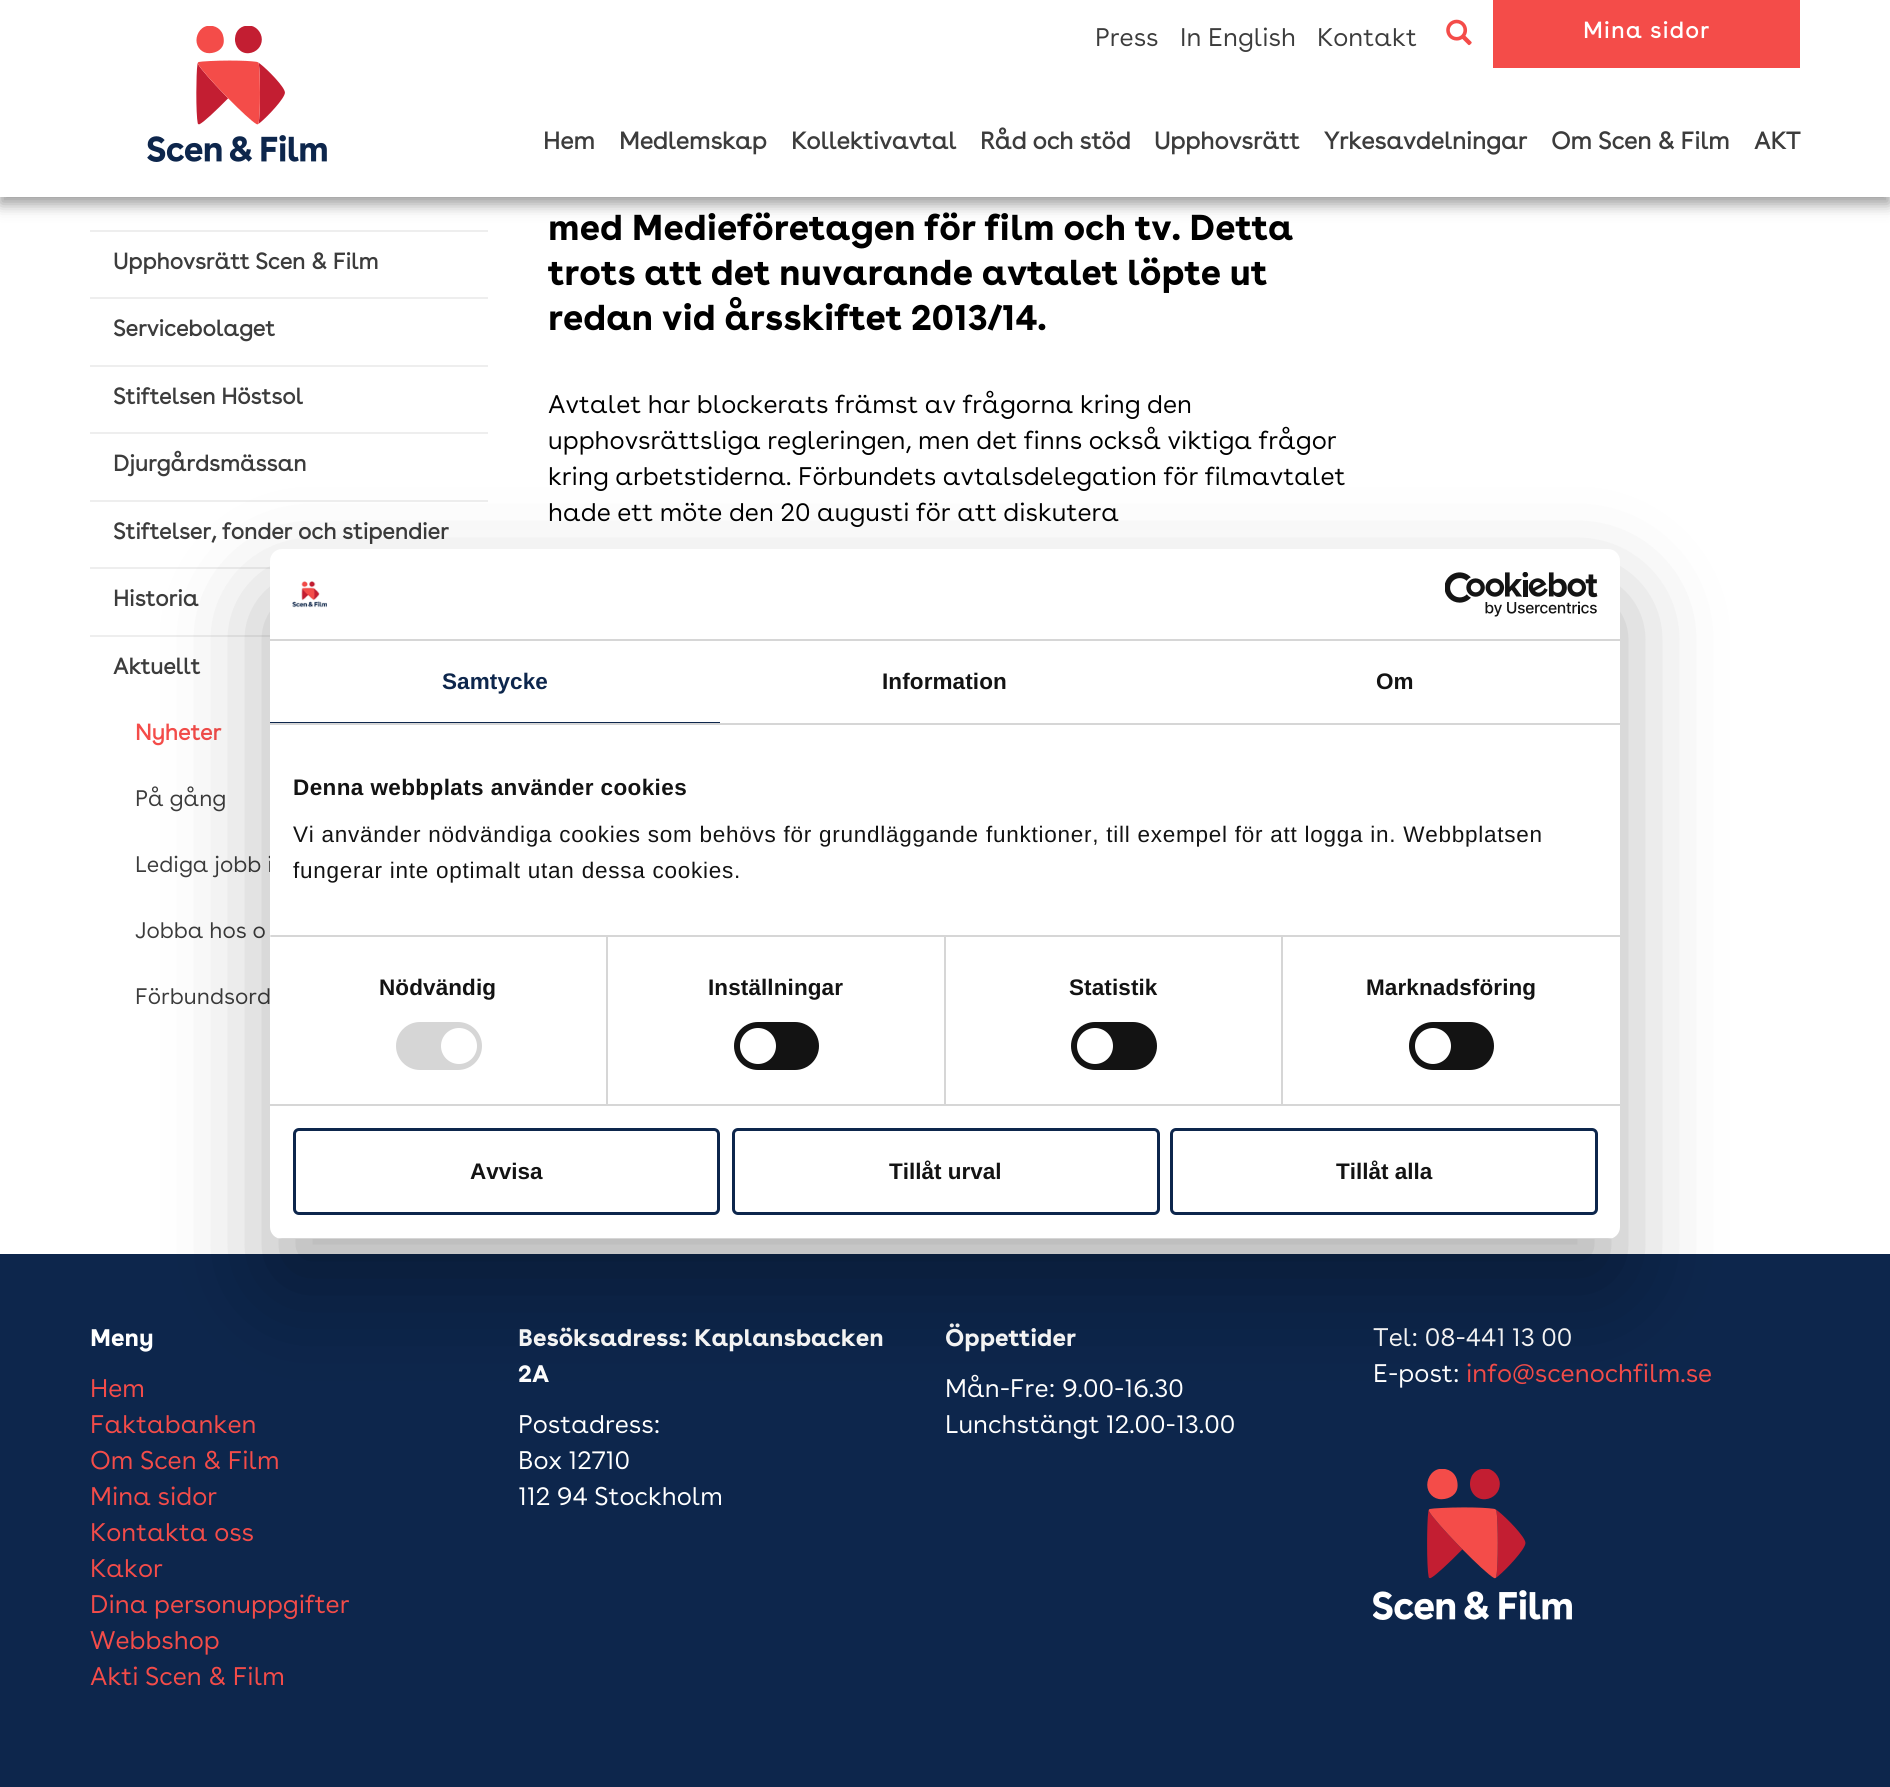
import math
import cairo


def write_spaced(ctx, x, y, s, letter, word):
	ctx.move_to(x, y)
	for ch in s:
		ctx.show_text(ch)
		ctx.rel_move_to(letter + word * (ch == ' '), 0)

def round_path(ctx, x, y, w, h, r):
	ctx.new_sub_path()
	for i, (u, v) in enumerate([(x + w - r, y + h - r), (x + r, y + h - r), (x + r, y + r), (x + w - r, y + r)]):
		ctx.arc(u, v, r, i * math.pi / 2, (i + 1) * math.pi / 2)
	ctx.close_path()

def blur_box(ctx, x, y, w, h, r, blur, alpha):
	ctx.push_group_with_content(cairo.CONTENT_ALPHA)
	ctx.set_operator(cairo.OPERATOR_SOURCE)
	for i in range(15, -16, -2):
		e = blur * i / 6
		if min(w, h) + 2 * e > 0:
			ctx.set_source_rgba(0, 0, 0, alpha * math.erfc((i - 1) / 8.5) / 2)
			round_path(ctx, x - e, y - e, w + 2 * e, h + 2 * e, max(0, min(r + e + blur * .6, min(w, h) / 2 + e)))
			ctx.fill()
	ctx.mask(ctx.pop_group())

def paste(ctx, path, x, y, w, h):
	ctx.save()
	ctx.set_source_surface(cairo.ImageSurface.create_from_png(path), x, y)
	ctx.rectangle(x, y, w, h)
	ctx.fill()
	ctx.restore()

def draw(ctx):
	ctx.set_source_rgb(1, 1, 1)
	ctx.paint()
	ctx.set_source_rgb(0, 0, 0)
	blur_box(ctx, 0, 8, 1890, 196, 0, 7.5, 0.4)
	ctx.set_source_rgb(1, 1, 1)
	ctx.rectangle(0, 0, 1890, 197)
	ctx.fill()
	paste(ctx, 'media/1.png', 147, 26, 180, 136)
	ctx.select_font_face('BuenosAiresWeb')
	ctx.set_font_size(25.5)
	ctx.set_source_rgb(0.235, 0.235, 0.235)
	for x, y, s in [
		(1095, 46, 'Press'),
		(1180, 46, 'In English'),
		(1317, 46, 'Kontakt'),
	]:
		ctx.move_to(x, y)
		ctx.show_text(s)
	paste(ctx, 'media/2.png', 1446, 19, 26, 27)
	ctx.set_source_rgb(0.957, 0.298, 0.286)
	ctx.rectangle(1493, 0, 307, 68)
	ctx.fill()
	ctx.select_font_face('BuenosAiresWeb', cairo.FONT_SLANT_NORMAL, cairo.FONT_WEIGHT_BOLD)
	ctx.set_font_size(22.5)
	ctx.set_source_rgb(1, 1, 1)
	write_spaced(ctx, 1583, 38, 'Mina sidor', 1.5, 0)
	ctx.set_font_size(24)
	ctx.set_source_rgb(0.235, 0.235, 0.235)
	for x, y, s in [
		(543, 149, 'Hem'),
		(619, 149, 'Medlemskap'),
		(791, 149, 'Kollektivavtal'),
		(980, 149, 'Råd och stöd'),
		(1154, 149, 'Upphovsrätt'),
		(1324, 149, 'Yrkesavdelningar'),
		(1551, 149, 'Om Scen & Film'),
		(1754, 149, 'AKT'),
	]:
		ctx.move_to(x, y)
		ctx.show_text(s)
	ctx.set_source_rgb(0.933, 0.933, 0.933)
	ctx.rectangle(90, 230, 398, 2)
	ctx.fill()
	ctx.rectangle(90, 297, 398, 2)
	ctx.fill()
	ctx.set_font_size(22.5)
	ctx.set_source_rgb(0.235, 0.235, 0.235)
	ctx.move_to(113, 269)
	ctx.show_text('Upphovsrätt Scen & Film')
	ctx.set_source_rgb(0.933, 0.933, 0.933)
	ctx.rectangle(90, 365, 398, 2)
	ctx.fill()
	ctx.set_source_rgb(0.235, 0.235, 0.235)
	ctx.move_to(113, 336)
	ctx.show_text('Servicebolaget')
	ctx.set_source_rgb(0.933, 0.933, 0.933)
	ctx.rectangle(90, 432, 398, 2)
	ctx.fill()
	ctx.set_source_rgb(0.235, 0.235, 0.235)
	ctx.move_to(113, 404)
	ctx.show_text('Stiftelsen Höstsol')
	ctx.set_source_rgb(0.933, 0.933, 0.933)
	ctx.rectangle(90, 500, 398, 2)
	ctx.fill()
	ctx.set_source_rgb(0.235, 0.235, 0.235)
	ctx.move_to(113, 471)
	ctx.show_text('Djurgårdsmässan')
	ctx.set_source_rgb(0.933, 0.933, 0.933)
	ctx.rectangle(90, 567, 180, 2)
	ctx.fill()
	ctx.set_source_rgb(0.235, 0.235, 0.235)
	ctx.move_to(113, 539)
	ctx.show_text('Stiftelser, fonder och stipendier')
	ctx.set_source_rgb(0.933, 0.933, 0.933)
	ctx.rectangle(90, 635, 180, 2)
	ctx.fill()
	ctx.set_source_rgb(0.235, 0.235, 0.235)
	ctx.move_to(113, 606)
	ctx.show_text('Historia')
	ctx.move_to(113, 674)
	ctx.show_text('Aktuellt')
	ctx.set_source_rgb(0.957, 0.298, 0.286)
	ctx.move_to(135, 740)
	ctx.show_text('Nyheter')
	ctx.select_font_face('BuenosAiresWeb')
	ctx.set_source_rgb(0.235, 0.235, 0.235)
	for x, y, s in [
		(135, 806, 'På gång'),
		(135, 872, 'Lediga jobb i'),
		(135, 938, 'Jobba hos o'),
		(135, 1004, 'Förbundsord'),
	]:
		ctx.move_to(x, y)
		ctx.show_text(s)
	ctx.select_font_face('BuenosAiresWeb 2', cairo.FONT_SLANT_NORMAL, cairo.FONT_WEIGHT_BOLD)
	ctx.set_font_size(36)
	ctx.set_source_rgb(0, 0, 0)
	for x, y, s in [
		(548, 240, 'med Medieföretagen för film och tv. Detta'),
		(548, 285, 'trots att det nuvarande avtalet löpte ut'),
		(548, 330, 'redan vid årsskiftet 2013/14.'),
	]:
		ctx.move_to(x, y)
		ctx.show_text(s)
	ctx.select_font_face('BuenosAiresWeb')
	ctx.set_font_size(25.5)
	for x, y, s in [
		(548, 413, 'Avtalet har blockerats främst av frågorna kring den'),
		(548, 449, 'upphovsrättsliga regleringen, men det finns också viktiga frågor'),
		(548, 485, 'kring arbetstiderna. Förbundets avtalsdelegation för filmavtalet'),
		(548, 521, 'hade ett möte den 20 augusti för att diskutera'),
	]:
		ctx.move_to(x, y)
		ctx.show_text(s)
	ctx.set_source_rgb(0.051, 0.149, 0.298)
	ctx.rectangle(0, 1254, 1890, 533)
	ctx.fill()
	ctx.select_font_face('BuenosAiresWeb 2', cairo.FONT_SLANT_NORMAL, cairo.FONT_WEIGHT_BOLD)
	ctx.set_font_size(24)
	ctx.set_source_rgb(1, 1, 1)
	ctx.move_to(90, 1346)
	ctx.show_text('Meny')
	ctx.select_font_face('BuenosAiresWeb')
	ctx.set_font_size(25.5)
	ctx.set_source_rgb(0.957, 0.298, 0.286)
	for x, y, s in [
		(90, 1397, 'Hem'),
		(90, 1433, 'Faktabanken'),
		(90, 1469, 'Om Scen & Film'),
		(90, 1505, 'Mina sidor'),
		(90, 1541, 'Kontakta oss'),
		(90, 1577, 'Kakor'),
		(90, 1613, 'Dina personuppgifter'),
		(90, 1649, 'Webbshop'),
		(90, 1685, 'Akti Scen & Film'),
	]:
		ctx.move_to(x, y)
		ctx.show_text(s)
	ctx.select_font_face('BuenosAiresWeb 2', cairo.FONT_SLANT_NORMAL, cairo.FONT_WEIGHT_BOLD)
	ctx.set_font_size(24)
	ctx.set_source_rgb(1, 1, 1)
	ctx.move_to(518, 1346)
	ctx.show_text('Besöksadress: Kaplansbacken')
	ctx.move_to(518, 1382)
	ctx.show_text('2A')
	ctx.select_font_face('BuenosAiresWeb')
	ctx.set_font_size(25.5)
	for x, y, s in [
		(518, 1433, 'Postadress:'),
		(518, 1469, 'Box 12710'),
		(518, 1505, '112 94 Stockholm'),
	]:
		ctx.move_to(x, y)
		ctx.show_text(s)
	ctx.select_font_face('BuenosAiresWeb 2', cairo.FONT_SLANT_NORMAL, cairo.FONT_WEIGHT_BOLD)
	ctx.set_font_size(24)
	ctx.move_to(945, 1346)
	ctx.show_text('Öppettider')
	ctx.select_font_face('BuenosAiresWeb')
	ctx.set_font_size(25.5)
	for x, y, s in [
		(945, 1397, 'Mån-Fre: 9.00-16.30'),
		(945, 1433, 'Lunchstängt 12.00-13.00'),
		(1373, 1346, 'Tel: 08-441 13 00'),
		(1373, 1382, 'E-post:'),
	]:
		ctx.move_to(x, y)
		ctx.show_text(s)
	ctx.set_source_rgb(0.957, 0.298, 0.286)
	ctx.move_to(1466, 1382)
	ctx.show_text('info@scenochfilm.se')
	paste(ctx, 'media/3.png', 1373, 1469, 199, 151)
	ctx.set_source_rgb(0, 0, 0)
	blur_box(ctx, 270, 597, 1350, 690, 12, 51, 0.3)
	ctx.set_source_rgb(1, 1, 1)
	round_path(ctx, 270, 549, 1350, 690, 12)
	ctx.fill()
	ctx.set_source_rgb(0.839, 0.839, 0.839)
	ctx.rectangle(270, 639, 1350, 2)
	ctx.fill()
	paste(ctx, 'media/4.png', 292, 581, 35, 27)
	paste(ctx, 'media/5.png', 1445, 572, 153, 45)
	ctx.rectangle(270, 723, 1350, 2)
	ctx.fill()
	ctx.set_source_rgb(0.051, 0.149, 0.298)
	ctx.rectangle(270, 722, 450, 1)
	ctx.fill()
	ctx.select_font_face('Liberation Sans', cairo.FONT_SLANT_NORMAL, cairo.FONT_WEIGHT_BOLD)
	ctx.set_font_size(22.5)
	write_spaced(ctx, 442, 689, 'Samtycke', 0.1, 0)
	ctx.set_source_rgb(0.078, 0.078, 0.078)
	write_spaced(ctx, 882, 689, 'Information', 0.1, 0)
	write_spaced(ctx, 1376, 689, 'Om', 0.1, 0)
	ctx.set_source_rgb(0.839, 0.839, 0.839)
	ctx.rectangle(606, 936, 2, 168)
	ctx.rectangle(944, 936, 2, 168)
	ctx.rectangle(1281, 936, 2, 168)
	ctx.rectangle(270, 935, 1350, 2)
	ctx.fill()
	ctx.set_source_rgb(0.078, 0.078, 0.078)
	write_spaced(ctx, 293, 795, 'Denna webbplats använder cookies', 0.4, 0)
	ctx.select_font_face('Liberation Sans')
	write_spaced(ctx, 293, 842, 'Vi använder nödvändiga cookies som behövs för grundläggande funktioner, till exempel för att logga in. Webbplatsen', 0.75, 0)
	write_spaced(ctx, 293, 878, 'fungerar inte optimalt utan dessa cookies.', 0.75, 0)
	ctx.set_source_rgb(0.839, 0.839, 0.839)
	ctx.rectangle(270, 1104, 1350, 2)
	ctx.fill()
	ctx.set_source_rgb(0.898, 0.898, 0.898)
	ctx.rectangle(270, 935, 1, 2)
	ctx.fill()
	ctx.select_font_face('Liberation Sans', cairo.FONT_SLANT_NORMAL, cairo.FONT_WEIGHT_BOLD)
	ctx.set_source_rgb(0.078, 0.078, 0.078)
	write_spaced(ctx, 379, 995, 'Nödvändig', 0.1, 0)
	ctx.set_source_rgb(0.839, 0.839, 0.839)
	round_path(ctx, 396, 1022, 86, 48, 24)
	ctx.fill()
	ctx.set_source_rgb(1, 1, 1)
	ctx.arc(459, 1046, 18, 0, 2 * math.pi)
	ctx.fill()
	ctx.set_source_rgb(0.078, 0.078, 0.078)
	write_spaced(ctx, 708, 995, 'Inställningar', 0.1, 0)
	round_path(ctx, 734, 1022, 85, 48, 24)
	ctx.fill()
	ctx.set_source_rgb(1, 1, 1)
	ctx.arc(758, 1046, 18, 0, 2 * math.pi)
	ctx.fill()
	ctx.set_source_rgb(0.078, 0.078, 0.078)
	write_spaced(ctx, 1069, 995, 'Statistik', 0.1, 0)
	round_path(ctx, 1071, 1022, 86, 48, 24)
	ctx.fill()
	ctx.set_source_rgb(1, 1, 1)
	ctx.arc(1095, 1046, 18, 0, 2 * math.pi)
	ctx.fill()
	ctx.set_source_rgb(0.078, 0.078, 0.078)
	write_spaced(ctx, 1366, 995, 'Marknadsföring', 0.1, 0)
	round_path(ctx, 1409, 1022, 85, 48, 24)
	ctx.fill()
	ctx.set_source_rgb(1, 1, 1)
	ctx.arc(1433, 1046, 18, 0, 2 * math.pi)
	ctx.fill()
	ctx.save()
	round_path(ctx, 270, 549, 1350, 690, 12)
	ctx.clip()
	ctx.set_source_rgb(0.839, 0.839, 0.839)
	ctx.rectangle(270, 1238, 1350, 1)
	ctx.fill()
	ctx.restore()
	round_path(ctx, 294.5, 1129.5, 424, 84, 4.5)
	ctx.set_source_rgb(0.051, 0.149, 0.298)
	ctx.set_line_width(3)
	ctx.stroke()
	ctx.set_source_rgb(0.078, 0.078, 0.078)
	ctx.move_to(470, 1179)
	ctx.show_text('Avvisa')
	round_path(ctx, 733.5, 1129.5, 425, 84, 4.5)
	ctx.set_source_rgb(0.051, 0.149, 0.298)
	ctx.stroke()
	ctx.set_source_rgb(0.078, 0.078, 0.078)
	ctx.move_to(889, 1179)
	ctx.show_text('Tillåt urval')
	round_path(ctx, 1171.5, 1129.5, 425, 84, 4.5)
	ctx.set_source_rgb(0.051, 0.149, 0.298)
	ctx.stroke()
	ctx.set_source_rgb(0.078, 0.078, 0.078)
	ctx.move_to(1336, 1179)
	ctx.show_text('Tillåt alla')


surface = cairo.ImageSurface(cairo.FORMAT_RGB24, 1890, 1787)
ctx = cairo.Context(surface)
options = cairo.FontOptions()
options.set_hint_metrics(cairo.HINT_METRICS_OFF)
options.set_hint_style(cairo.HINT_STYLE_NONE)
ctx.set_font_options(options)
ctx.set_miter_limit(4)
draw(ctx)
surface.write_to_png('image.png')
